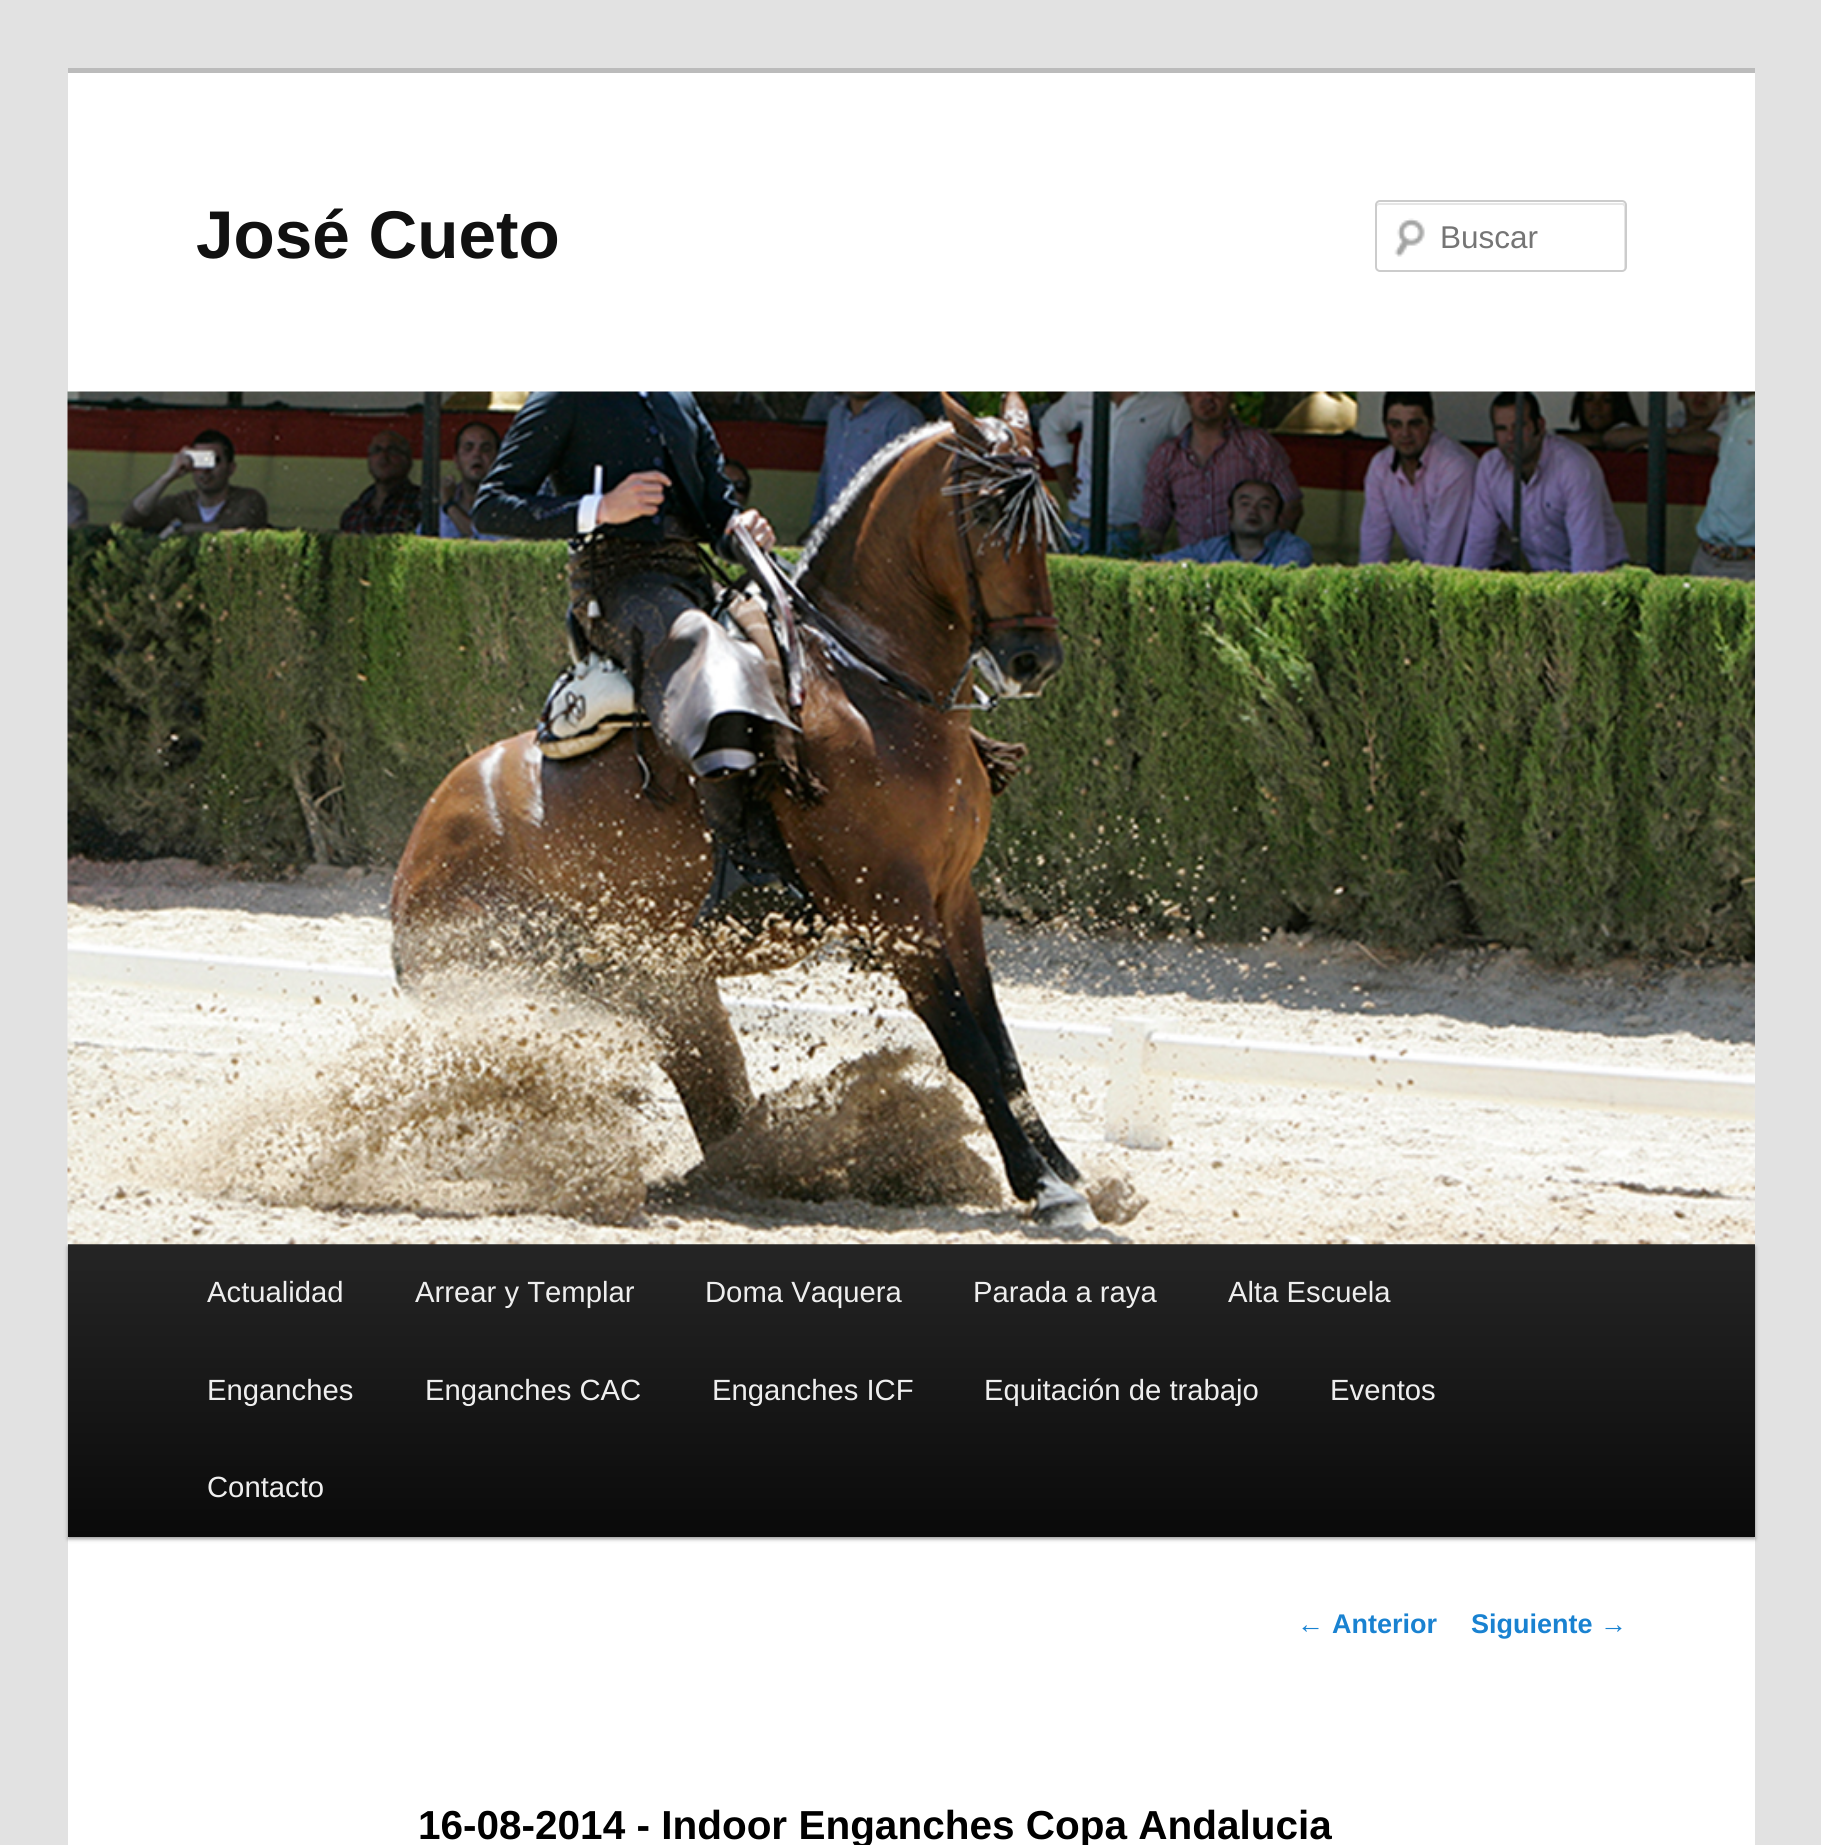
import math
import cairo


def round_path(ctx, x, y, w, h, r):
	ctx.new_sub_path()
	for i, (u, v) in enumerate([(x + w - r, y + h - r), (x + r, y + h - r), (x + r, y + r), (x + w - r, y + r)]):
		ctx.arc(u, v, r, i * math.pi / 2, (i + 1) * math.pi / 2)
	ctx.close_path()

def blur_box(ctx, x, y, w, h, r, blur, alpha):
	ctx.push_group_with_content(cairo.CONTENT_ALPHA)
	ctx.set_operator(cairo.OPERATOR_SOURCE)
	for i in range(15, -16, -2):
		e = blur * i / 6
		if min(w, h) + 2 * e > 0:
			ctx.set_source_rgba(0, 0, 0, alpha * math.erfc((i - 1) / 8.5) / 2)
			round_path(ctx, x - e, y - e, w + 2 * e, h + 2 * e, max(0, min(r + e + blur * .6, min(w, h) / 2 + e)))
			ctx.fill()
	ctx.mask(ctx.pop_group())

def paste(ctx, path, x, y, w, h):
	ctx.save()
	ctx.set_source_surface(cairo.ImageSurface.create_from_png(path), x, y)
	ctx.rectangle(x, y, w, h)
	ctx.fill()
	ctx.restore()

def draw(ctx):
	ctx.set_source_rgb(0.886, 0.886, 0.886)
	ctx.paint()
	ctx.set_source_rgb(1, 1, 1)
	ctx.rectangle(68, 73, 1687, 1772)
	ctx.fill()
	ctx.set_source_rgb(0.733, 0.733, 0.733)
	ctx.rectangle(68, 68, 1687, 5)
	ctx.fill()
	ctx.select_font_face('Liberation Sans', cairo.FONT_SLANT_NORMAL, cairo.FONT_WEIGHT_BOLD)
	ctx.set_font_size(67.5)
	ctx.set_source_rgb(0.067, 0.067, 0.067)
	ctx.move_to(196, 258)
	ctx.show_text('José Cueto')
	paste(ctx, 'media/1.png', 1394, 218, 31, 39)
	ctx.set_source_rgb(0.902, 0.902, 0.902)
	ctx.new_path()
	ctx.move_to(1379, 205)
	ctx.line_to(1622, 205)
	ctx.curve_to(1623, 205, 1624, 206, 1624, 207)
	ctx.line_to(1624, 270)
	ctx.curve_to(1625, 269, 1625, 269, 1625, 268)
	ctx.line_to(1625, 205)
	ctx.curve_to(1625, 204, 1624, 203, 1623, 203)
	ctx.line_to(1379, 203)
	ctx.curve_to(1378, 203, 1377, 204, 1377, 205)
	ctx.line_to(1377, 207)
	ctx.curve_to(1377, 206, 1378, 205, 1379, 205)
	ctx.close_path()
	ctx.fill()
	round_path(ctx, 1376, 201, 250, 70, 4)
	ctx.set_source_rgb(0.8, 0.8, 0.8)
	ctx.stroke()
	ctx.select_font_face('Liberation Sans')
	ctx.set_font_size(31.5)
	ctx.set_source_rgb(0.459, 0.459, 0.459)
	ctx.move_to(1440, 248)
	ctx.show_text('Buscar')
	ctx.set_source_rgb(0, 0, 0)
	blur_box(ctx, 68, 1247, 1687, 292, 0, 2, 0.4)
	gradient = cairo.LinearGradient(911, 1244, 911, 1537)
	gradient.add_color_stop_rgba(0, 0.145, 0.145, 0.145, 1)
	gradient.add_color_stop_rgba(1, 0.039, 0.039, 0.039, 1)
	ctx.set_source(gradient)
	ctx.rectangle(68, 1244, 1687, 293)
	ctx.fill()
	paste(ctx, 'media/2.png', 67, 391, 1688, 854)
	ctx.set_font_size(29.25)
	ctx.set_source_rgb(0.933, 0.933, 0.933)
	for x, y, s in [
		(207, 1302, 'Actualidad'),
		(415, 1302, 'Arrear y Templar'),
		(705, 1302, 'Doma Vaquera'),
		(973, 1302, 'Parada a raya'),
		(1228, 1302, 'Alta Escuela'),
		(207, 1400, 'Enganches'),
		(425, 1400, 'Enganches CAC'),
		(712, 1400, 'Enganches ICF'),
		(984, 1400, 'Equitación de trabajo'),
		(1330, 1400, 'Eventos'),
		(207, 1497, 'Contacto'),
	]:
		ctx.move_to(x, y)
		ctx.show_text(s)
	ctx.set_font_size(27)
	ctx.set_source_rgb(0.098, 0.51, 0.82)
	ctx.move_to(1297, 1633)
	ctx.show_text('←')
	ctx.select_font_face('Liberation Sans', cairo.FONT_SLANT_NORMAL, cairo.FONT_WEIGHT_BOLD)
	ctx.move_to(1332, 1633)
	ctx.show_text('Anterior')
	ctx.move_to(1471, 1633)
	ctx.show_text('Siguiente')
	ctx.select_font_face('Liberation Sans')
	ctx.move_to(1600, 1633)
	ctx.show_text('→')
	ctx.select_font_face('Liberation Sans', cairo.FONT_SLANT_NORMAL, cairo.FONT_WEIGHT_BOLD)
	ctx.set_font_size(40.5)
	ctx.set_source_rgb(0, 0, 0)
	ctx.move_to(418, 1839)
	ctx.show_text('16-08-2014 - Indoor Enganches Copa Andalucia')


surface = cairo.ImageSurface(cairo.FORMAT_RGB24, 1821, 1845)
ctx = cairo.Context(surface)
options = cairo.FontOptions()
options.set_hint_metrics(cairo.HINT_METRICS_OFF)
options.set_hint_style(cairo.HINT_STYLE_NONE)
ctx.set_font_options(options)
ctx.set_miter_limit(4)
draw(ctx)
surface.write_to_png('image.png')
